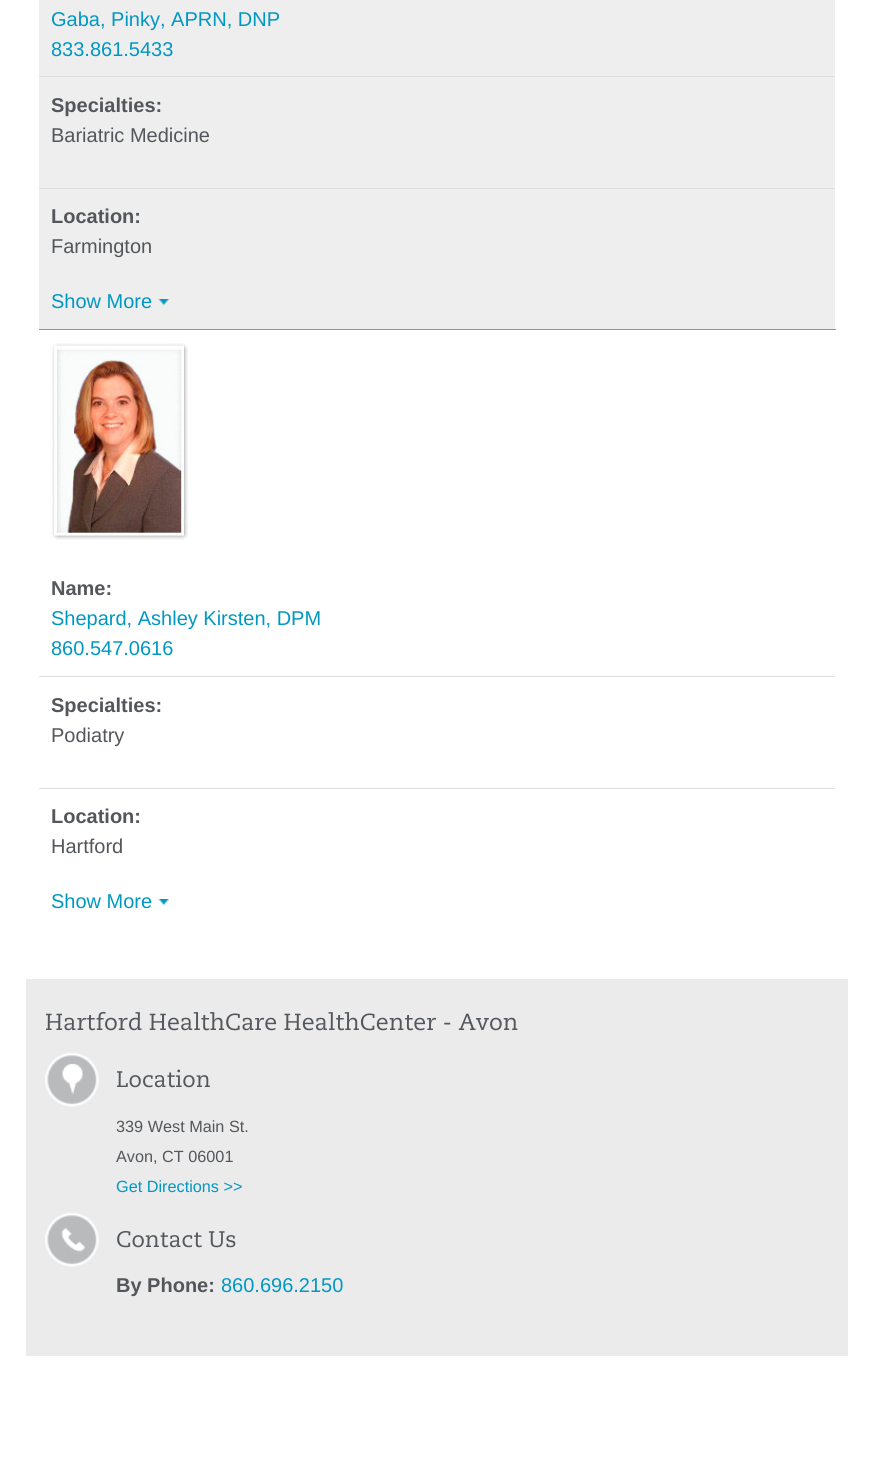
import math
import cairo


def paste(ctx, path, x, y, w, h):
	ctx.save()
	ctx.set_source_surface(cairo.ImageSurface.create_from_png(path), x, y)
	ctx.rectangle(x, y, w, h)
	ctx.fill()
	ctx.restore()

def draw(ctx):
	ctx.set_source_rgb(1, 1, 1)
	ctx.paint()
	ctx.set_source_rgb(0.933, 0.933, 0.933)
	ctx.rectangle(39, 0, 796, 329)
	ctx.fill()
	ctx.set_source_rgb(0.565, 0.573, 0.58)
	ctx.rectangle(39, 329, 797, 1)
	ctx.fill()
	ctx.set_source_rgb(0.867, 0.867, 0.867)
	ctx.rectangle(39, 76, 796, 1)
	ctx.fill()
	ctx.select_font_face('Liberation Sans')
	ctx.set_font_size(20)
	ctx.set_source_rgb(0, 0.596, 0.765)
	ctx.move_to(51, 26)
	ctx.show_text('Gaba, Pinky, APRN, DNP')
	ctx.move_to(51, 56)
	ctx.show_text('833.861.5433')
	ctx.set_source_rgb(0.867, 0.867, 0.867)
	ctx.rectangle(39, 188, 796, 1)
	ctx.fill()
	ctx.select_font_face('Liberation Sans', cairo.FONT_SLANT_NORMAL, cairo.FONT_WEIGHT_BOLD)
	ctx.set_source_rgb(0.325, 0.337, 0.353)
	ctx.move_to(51, 112)
	ctx.show_text('Specialties:')
	ctx.select_font_face('Liberation Sans')
	ctx.move_to(51, 142)
	ctx.show_text('Bariatric Medicine')
	ctx.select_font_face('Liberation Sans', cairo.FONT_SLANT_NORMAL, cairo.FONT_WEIGHT_BOLD)
	ctx.move_to(51, 223)
	ctx.show_text('Location:')
	ctx.select_font_face('Liberation Sans')
	ctx.move_to(51, 253)
	ctx.show_text('Farmington')
	ctx.set_source_rgb(0, 0.596, 0.765)
	ctx.move_to(51, 308)
	ctx.show_text('Show More')
	paste(ctx, 'media/1.png', 158, 299, 11, 7)
	paste(ctx, 'media/2.png', 51, 343, 137, 197)
	ctx.set_source_rgb(0.867, 0.867, 0.867)
	ctx.rectangle(39, 676, 796, 1)
	ctx.fill()
	ctx.select_font_face('Liberation Sans', cairo.FONT_SLANT_NORMAL, cairo.FONT_WEIGHT_BOLD)
	ctx.set_source_rgb(0.325, 0.337, 0.353)
	ctx.move_to(51, 595)
	ctx.show_text('Name:')
	ctx.select_font_face('Liberation Sans')
	ctx.set_source_rgb(0, 0.596, 0.765)
	ctx.move_to(51, 625)
	ctx.show_text('Shepard, Ashley Kirsten, DPM')
	ctx.move_to(51, 655)
	ctx.show_text('860.547.0616')
	ctx.set_source_rgb(0.867, 0.867, 0.867)
	ctx.rectangle(39, 788, 796, 1)
	ctx.fill()
	ctx.select_font_face('Liberation Sans', cairo.FONT_SLANT_NORMAL, cairo.FONT_WEIGHT_BOLD)
	ctx.set_source_rgb(0.325, 0.337, 0.353)
	ctx.move_to(51, 712)
	ctx.show_text('Specialties:')
	ctx.select_font_face('Liberation Sans')
	ctx.move_to(51, 742)
	ctx.show_text('Podiatry')
	ctx.select_font_face('Liberation Sans', cairo.FONT_SLANT_NORMAL, cairo.FONT_WEIGHT_BOLD)
	ctx.move_to(51, 823)
	ctx.show_text('Location:')
	ctx.select_font_face('Liberation Sans')
	ctx.move_to(51, 853)
	ctx.show_text('Hartford')
	ctx.set_source_rgb(0, 0.596, 0.765)
	ctx.move_to(51, 908)
	ctx.show_text('Show More')
	paste(ctx, 'media/3.png', 158, 899, 11, 7)
	ctx.set_source_rgb(0.918, 0.918, 0.918)
	ctx.rectangle(26, 979, 822, 377)
	ctx.fill()
	ctx.select_font_face('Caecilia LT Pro')
	ctx.set_font_size(23.25)
	ctx.set_source_rgb(0.325, 0.337, 0.353)
	ctx.move_to(45, 1030)
	ctx.show_text('Hartford HealthCare HealthCenter - Avon')
	paste(ctx, 'media/4.png', 45, 1052, 54, 55)
	ctx.set_font_size(22.5)
	ctx.move_to(116, 1087)
	ctx.show_text('Location')
	ctx.select_font_face('Liberation Sans')
	ctx.set_font_size(16.25)
	ctx.move_to(116, 1132)
	ctx.show_text('339 West Main St.')
	ctx.move_to(116, 1162)
	ctx.show_text('Avon, CT 06001')
	ctx.set_source_rgb(0, 0.596, 0.765)
	ctx.move_to(116, 1192)
	ctx.show_text('Get Directions >>')
	paste(ctx, 'media/5.png', 45, 1212, 54, 55)
	ctx.select_font_face('Caecilia LT Pro')
	ctx.set_font_size(22.5)
	ctx.set_source_rgb(0.325, 0.337, 0.353)
	ctx.move_to(116, 1247)
	ctx.show_text('Contact Us')
	ctx.select_font_face('Liberation Sans', cairo.FONT_SLANT_NORMAL, cairo.FONT_WEIGHT_BOLD)
	ctx.set_font_size(20)
	ctx.move_to(116, 1292)
	ctx.show_text('By Phone:')
	ctx.select_font_face('Liberation Sans')
	ctx.set_source_rgb(0, 0.596, 0.765)
	ctx.move_to(221, 1292)
	ctx.show_text('860.696.2150')


surface = cairo.ImageSurface(cairo.FORMAT_RGB24, 873, 1466)
ctx = cairo.Context(surface)
options = cairo.FontOptions()
options.set_hint_metrics(cairo.HINT_METRICS_OFF)
options.set_hint_style(cairo.HINT_STYLE_NONE)
ctx.set_font_options(options)
ctx.set_miter_limit(4)
draw(ctx)
surface.write_to_png('image.png')
